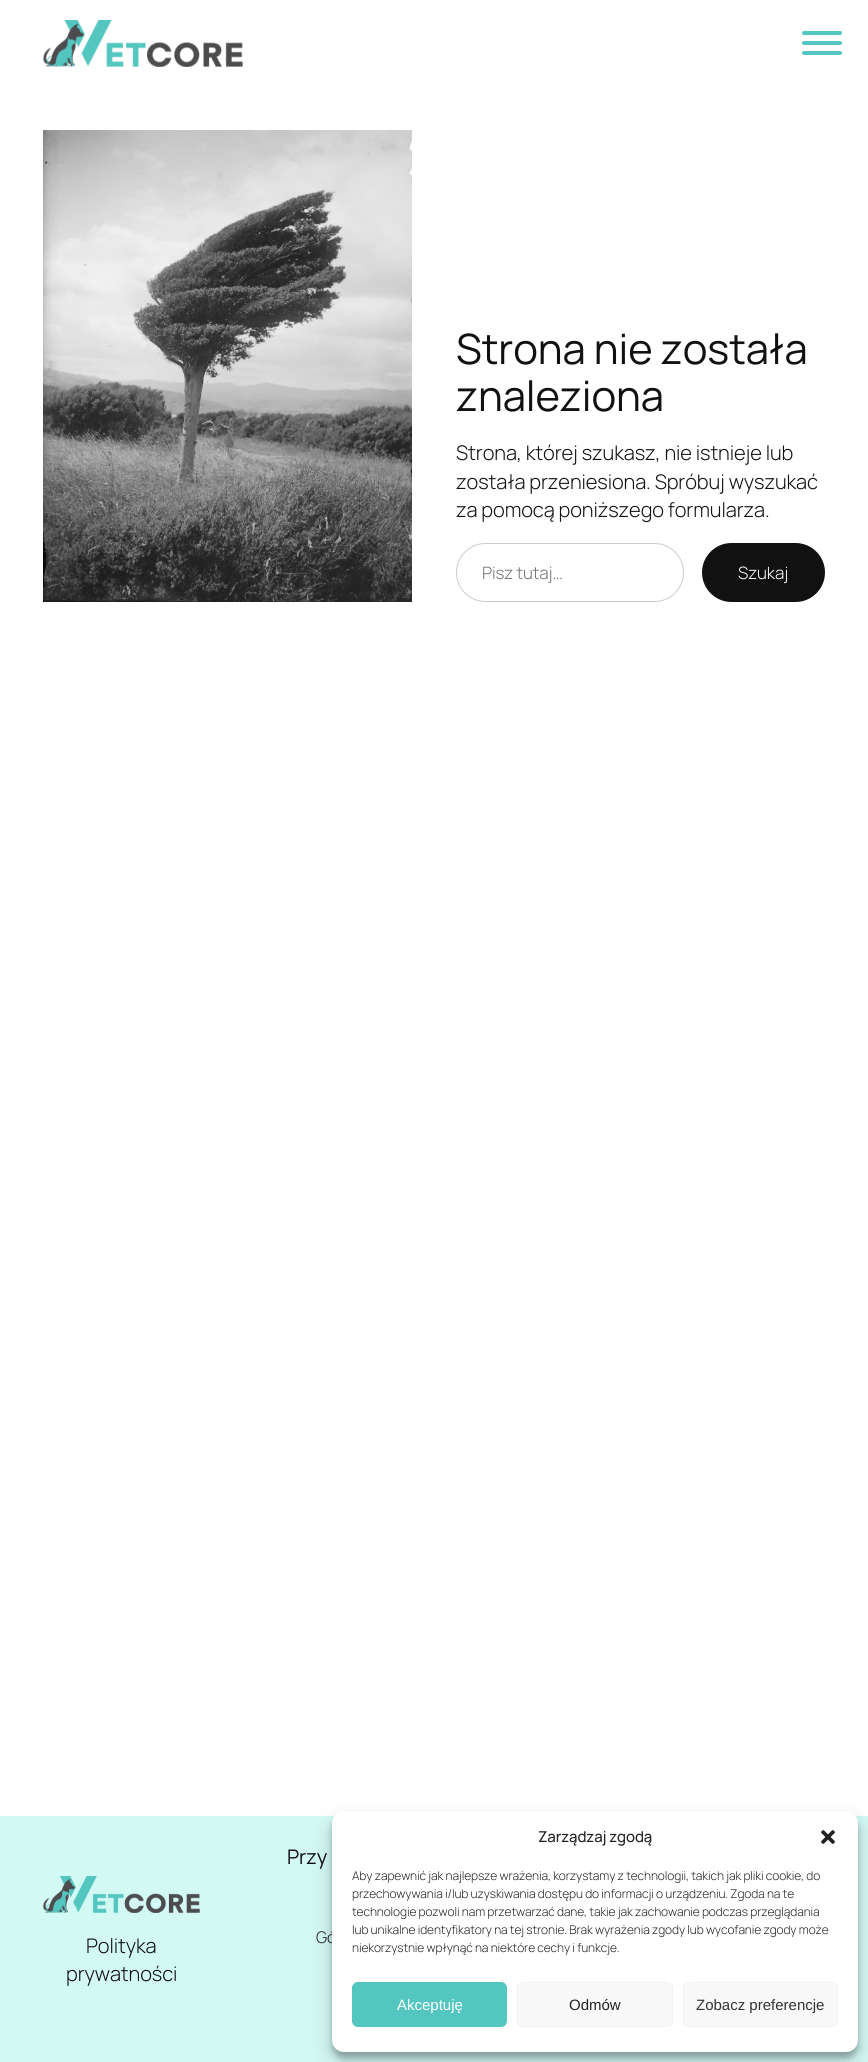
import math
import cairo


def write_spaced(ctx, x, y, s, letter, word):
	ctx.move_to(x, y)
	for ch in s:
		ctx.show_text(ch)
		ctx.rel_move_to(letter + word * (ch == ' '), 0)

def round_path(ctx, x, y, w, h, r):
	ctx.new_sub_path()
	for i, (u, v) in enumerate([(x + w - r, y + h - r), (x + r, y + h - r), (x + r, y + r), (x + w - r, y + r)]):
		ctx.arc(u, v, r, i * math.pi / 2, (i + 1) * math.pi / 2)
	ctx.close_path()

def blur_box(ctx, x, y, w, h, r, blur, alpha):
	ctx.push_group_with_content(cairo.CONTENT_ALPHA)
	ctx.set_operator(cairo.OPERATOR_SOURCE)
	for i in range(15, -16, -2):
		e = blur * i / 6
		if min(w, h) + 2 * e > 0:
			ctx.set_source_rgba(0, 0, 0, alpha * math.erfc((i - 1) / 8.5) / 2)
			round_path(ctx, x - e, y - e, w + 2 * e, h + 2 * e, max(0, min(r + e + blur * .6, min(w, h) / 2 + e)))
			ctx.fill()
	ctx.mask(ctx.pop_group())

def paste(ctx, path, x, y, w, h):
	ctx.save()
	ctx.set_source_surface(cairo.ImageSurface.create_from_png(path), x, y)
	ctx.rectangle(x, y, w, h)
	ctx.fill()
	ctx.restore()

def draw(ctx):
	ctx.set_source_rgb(1, 1, 1)
	ctx.paint()
	paste(ctx, 'media/1.png', 43, 20, 200, 47)
	ctx.set_source_rgb(0.325, 0.776, 0.753)
	round_path(ctx, 802, 31, 40, 4, 2)
	ctx.fill()
	round_path(ctx, 802, 41, 40, 4, 2)
	ctx.fill()
	round_path(ctx, 802, 51, 40, 4, 2)
	ctx.fill()
	paste(ctx, 'media/2.png', 43, 130, 369, 472)
	ctx.select_font_face('Manrope')
	ctx.set_font_size(41.75)
	ctx.set_source_rgb(0.067, 0.067, 0.067)
	write_spaced(ctx, 456, 364, 'Strona nie została', -0.1, 0)
	write_spaced(ctx, 456, 411, 'znaleziona', -0.1, 0)
	ctx.select_font_face('Manrope Light')
	ctx.set_font_size(20.1)
	for x, y, s in [
		(456, 460, 'Strona, której szukasz, nie istnieje lub'),
		(456, 489, 'została przeniesiona. Spróbuj wyszukać'),
		(456, 517, 'za pomocą poniższego formularza.'),
	]:
		write_spaced(ctx, x, y, s, -0.1, 0)
	round_path(ctx, 456.5, 543.5, 227, 58, 29)
	ctx.set_source_rgb(0.8, 0.8, 0.8)
	ctx.set_line_width(1)
	ctx.stroke()
	ctx.set_font_size(17)
	ctx.set_source_rgb(0.459, 0.459, 0.459)
	write_spaced(ctx, 482, 579, 'Pisz tutaj…', -0.1, 0)
	ctx.set_source_rgb(0.067, 0.067, 0.067)
	round_path(ctx, 702, 543, 123, 59, 29.5)
	ctx.fill()
	ctx.set_source_rgb(1, 1, 1)
	write_spaced(ctx, 738, 579, 'Szukaj', -0.1, 0)
	ctx.set_source_rgb(0.827, 0.976, 0.957)
	ctx.rectangle(0, 1816, 868, 246)
	ctx.fill()
	ctx.select_font_face('Manrope')
	ctx.set_font_size(20.1)
	ctx.set_source_rgb(0.067, 0.067, 0.067)
	write_spaced(ctx, 287, 1864, 'Przy', -0.1, 0)
	ctx.select_font_face('Manrope Light')
	ctx.set_font_size(16)
	ctx.set_source_rgb(0.133, 0.133, 0.133)
	write_spaced(ctx, 316, 1943, 'Gó', -0.1, 0)
	paste(ctx, 'media/3.png', 43, 1876, 157, 37)
	ctx.set_font_size(20.1)
	ctx.set_source_rgb(0.067, 0.067, 0.067)
	write_spaced(ctx, 86, 1953, 'Polityka', -0.1, 0)
	write_spaced(ctx, 66, 1981, 'prywatności', -0.1, 0)
	ctx.set_source_rgb(0, 0, 0)
	blur_box(ctx, 332, 1817, 526, 241, 12, 3, 0.23)
	blur_box(ctx, 332, 1821, 526, 241, 12, 10, 0.19)
	ctx.set_source_rgb(1, 1, 1)
	round_path(ctx, 332, 1811, 526, 241, 12)
	ctx.fill()
	ctx.select_font_face('Manrope Medium')
	ctx.set_font_size(15)
	ctx.set_source_rgb(0.133, 0.133, 0.133)
	write_spaced(ctx, 538, 1842, 'Zarządzaj zgodą', -0.1, 0)
	paste(ctx, 'media/4.png', 821, 1830, 14, 14)
	ctx.select_font_face('Manrope Light')
	ctx.set_font_size(12)
	for x, y, s in [
		(352, 1880, 'Aby zapewnić jak najlepsze wrażenia, korzystamy z technologii, takich jak pliki cookie, do'),
		(352, 1898, 'przechowywania i/lub uzyskiwania dostępu do informacji o urządzeniu. Zgoda na te'),
		(352, 1916, 'technologie pozwoli nam przetwarzać dane, takie jak zachowanie podczas przeglądania'),
		(352, 1934, 'lub unikalne identyfikatory na tej stronie. Brak wyrażenia zgody lub wycofanie zgody może'),
		(352, 1952, 'niekorzystnie wpłynąć na niektóre cechy i funkcje.'),
	]:
		write_spaced(ctx, x, y, s, -0.1, 0)
	ctx.set_source_rgb(0.329, 0.776, 0.753)
	round_path(ctx, 352.5, 1982.5, 154, 44, 5.5)
	ctx.fill_preserve()
	ctx.stroke()
	ctx.select_font_face('Liberation Sans')
	ctx.set_font_size(15)
	ctx.set_source_rgb(1, 1, 1)
	ctx.move_to(397, 2010)
	ctx.show_text('Akceptuję')
	ctx.set_source_rgb(0.976, 0.976, 0.976)
	round_path(ctx, 517.5, 1982.5, 155, 44, 5.5)
	ctx.fill_preserve()
	ctx.set_source_rgb(0.949, 0.949, 0.949)
	ctx.stroke()
	ctx.set_source_rgb(0.133, 0.133, 0.133)
	ctx.move_to(569, 2010)
	ctx.show_text('Odmów')
	ctx.set_source_rgb(0.976, 0.976, 0.976)
	round_path(ctx, 683.5, 1982.5, 154, 44, 5.5)
	ctx.fill_preserve()
	ctx.set_source_rgb(0.949, 0.949, 0.949)
	ctx.stroke()
	ctx.set_source_rgb(0.2, 0.2, 0.2)
	ctx.move_to(696, 2010)
	ctx.show_text('Zobacz preferencje')


surface = cairo.ImageSurface(cairo.FORMAT_RGB24, 868, 2062)
ctx = cairo.Context(surface)
options = cairo.FontOptions()
options.set_hint_metrics(cairo.HINT_METRICS_OFF)
options.set_hint_style(cairo.HINT_STYLE_NONE)
ctx.set_font_options(options)
ctx.set_miter_limit(4)
draw(ctx)
surface.write_to_png('image.png')
